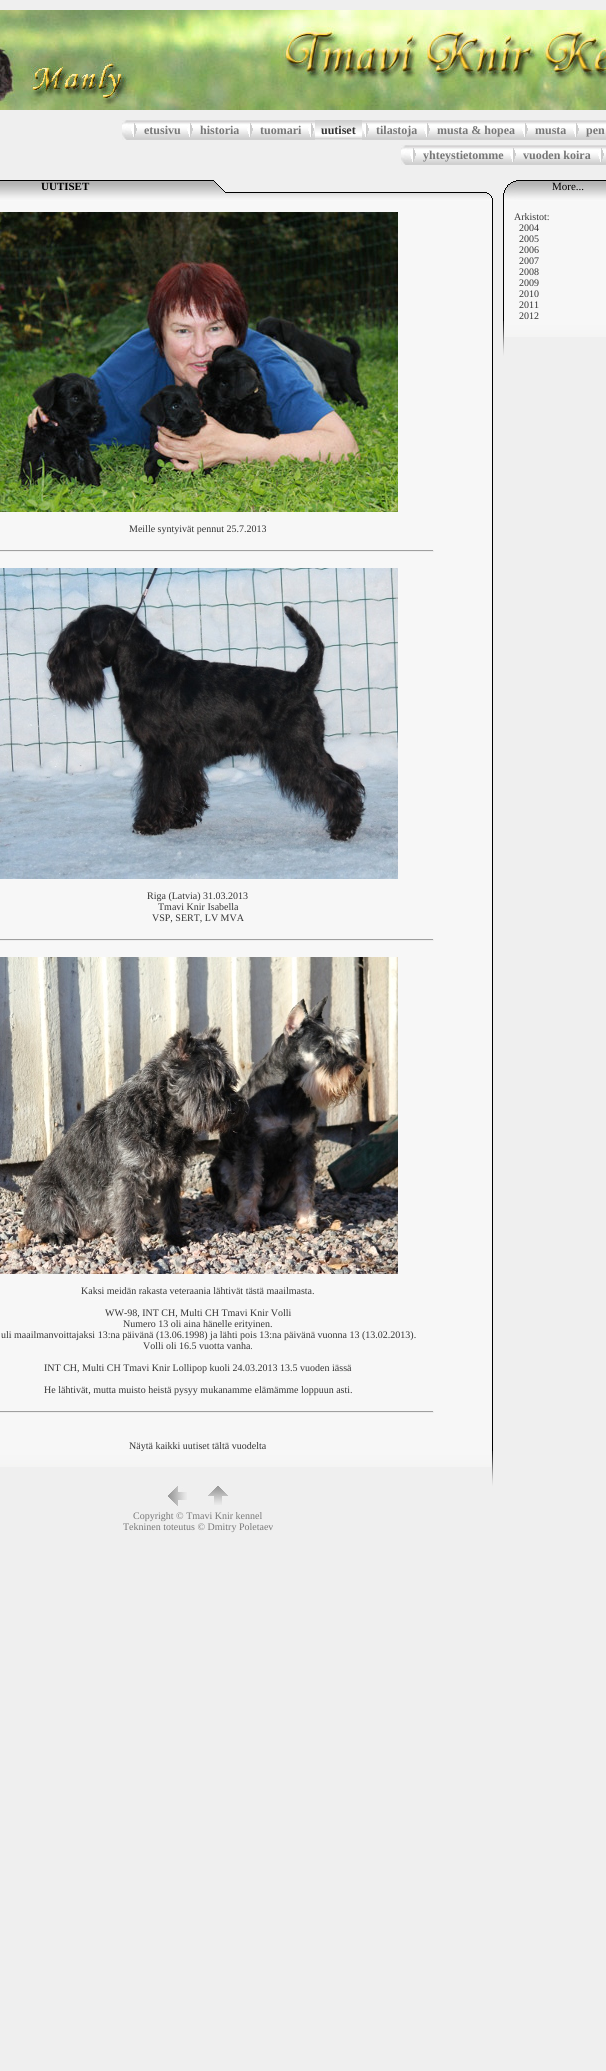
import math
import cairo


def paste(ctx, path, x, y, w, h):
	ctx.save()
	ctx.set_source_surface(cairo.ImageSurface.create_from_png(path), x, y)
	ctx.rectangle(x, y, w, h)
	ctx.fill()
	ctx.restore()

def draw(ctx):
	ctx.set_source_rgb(0.937, 0.937, 0.937)
	ctx.paint()
	paste(ctx, 'media/1.png', 0, 10, 606, 100)
	paste(ctx, 'media/2.png', 122, 120, 8, 20)
	paste(ctx, 'media/3.png', 130, 120, 8, 20)
	paste(ctx, 'media/4.png', 131, 123, 6, 14)
	paste(ctx, 'media/5.png', 138, 120, 48, 20)
	ctx.select_font_face('Liberation Serif', cairo.FONT_SLANT_NORMAL, cairo.FONT_WEIGHT_BOLD)
	ctx.set_font_size(12)
	ctx.set_source_rgb(0.467, 0.467, 0.467)
	ctx.move_to(144, 134)
	ctx.show_text('etusivu')
	paste(ctx, 'media/3.png', 186, 120, 8, 20)
	paste(ctx, 'media/4.png', 187, 123, 6, 14)
	paste(ctx, 'media/6.png', 194, 120, 52, 20)
	ctx.move_to(200, 134)
	ctx.show_text('historia')
	paste(ctx, 'media/3.png', 246, 120, 8, 20)
	paste(ctx, 'media/4.png', 247, 123, 6, 14)
	paste(ctx, 'media/7.png', 254, 120, 53, 20)
	ctx.move_to(260, 134)
	ctx.show_text('tuomari')
	paste(ctx, 'media/3.png', 307, 120, 8, 20)
	paste(ctx, 'media/4.png', 308, 123, 6, 14)
	paste(ctx, 'media/8.png', 315, 120, 47, 20)
	ctx.set_source_rgb(0.2, 0.2, 0.2)
	ctx.move_to(321, 134)
	ctx.show_text('uutiset')
	paste(ctx, 'media/3.png', 362, 120, 8, 20)
	paste(ctx, 'media/4.png', 363, 123, 6, 14)
	paste(ctx, 'media/7.png', 370, 120, 53, 20)
	ctx.set_source_rgb(0.467, 0.467, 0.467)
	ctx.move_to(376, 134)
	ctx.show_text('tilastoja')
	paste(ctx, 'media/3.png', 423, 120, 8, 20)
	paste(ctx, 'media/4.png', 424, 123, 6, 14)
	paste(ctx, 'media/9.png', 431, 120, 90, 20)
	ctx.move_to(437, 134)
	ctx.show_text('musta & hopea')
	paste(ctx, 'media/3.png', 521, 120, 8, 20)
	paste(ctx, 'media/4.png', 522, 123, 6, 14)
	paste(ctx, 'media/10.png', 529, 120, 43, 20)
	ctx.move_to(535, 134)
	ctx.show_text('musta')
	paste(ctx, 'media/3.png', 572, 120, 8, 20)
	paste(ctx, 'media/4.png', 573, 123, 6, 14)
	paste(ctx, 'media/11.png', 580, 120, 26, 20)
	ctx.move_to(586, 134)
	ctx.show_text('pen')
	paste(ctx, 'media/2.png', 401, 145, 8, 20)
	paste(ctx, 'media/3.png', 409, 145, 8, 20)
	paste(ctx, 'media/4.png', 410, 148, 6, 14)
	paste(ctx, 'media/12.png', 417, 145, 92, 20)
	ctx.move_to(423, 159)
	ctx.show_text('yhteystietomme')
	paste(ctx, 'media/3.png', 509, 145, 8, 20)
	paste(ctx, 'media/4.png', 510, 148, 6, 14)
	paste(ctx, 'media/13.png', 517, 145, 80, 20)
	ctx.move_to(523, 159)
	ctx.show_text('vuoden koira')
	paste(ctx, 'media/3.png', 597, 145, 8, 20)
	paste(ctx, 'media/4.png', 598, 148, 6, 14)
	paste(ctx, 'media/14.png', 605, 145, 1, 20)
	paste(ctx, 'media/15.png', 0, 192, 487, 9)
	paste(ctx, 'media/16.png', 0, 180, 213, 13)
	ctx.set_font_size(11)
	ctx.set_source_rgb(0, 0, 0)
	ctx.move_to(41, 190)
	ctx.show_text('UUTISET')
	paste(ctx, 'media/17.png', 213, 180, 12, 13)
	paste(ctx, 'media/18.png', 487, 192, 6, 9)
	ctx.set_source_rgb(0.965, 0.965, 0.965)
	ctx.rectangle(0, 201, 492, 1250)
	ctx.fill()
	ctx.set_source_rgb(0, 0, 0)
	ctx.rectangle(492, 201, 1, 1250)
	ctx.fill()
	paste(ctx, 'media/19.png', 0, 212, 398, 300)
	ctx.select_font_face('Liberation Serif')
	ctx.set_font_size(10)
	ctx.set_source_rgb(0.2, 0.2, 0.2)
	ctx.move_to(129, 532)
	ctx.show_text('Meille syntyivät pennut 25.7.2013')
	ctx.set_source_rgb(0.624, 0.624, 0.624)
	ctx.rectangle(0, 550, 434, 1)
	ctx.fill()
	ctx.set_source_rgb(0.933, 0.933, 0.933)
	ctx.rectangle(433, 550, 1, 2)
	ctx.rectangle(0, 551, 434, 1)
	ctx.fill()
	paste(ctx, 'media/20.png', 0, 568, 398, 311)
	ctx.set_source_rgb(0.2, 0.2, 0.2)
	for x, y, s in [
		(147, 899, 'Riga (Latvia) 31.03.2013'),
		(158, 910, 'Tmavi Knir Isabella'),
		(152, 921, 'VSP, SERT, LV MVA'),
	]:
		ctx.move_to(x, y)
		ctx.show_text(s)
	ctx.set_source_rgb(0.624, 0.624, 0.624)
	ctx.rectangle(0, 939, 434, 1)
	ctx.fill()
	ctx.set_source_rgb(0.933, 0.933, 0.933)
	ctx.rectangle(433, 939, 1, 2)
	ctx.rectangle(0, 940, 434, 1)
	ctx.fill()
	paste(ctx, 'media/21.png', 0, 957, 398, 317)
	ctx.set_source_rgb(0.2, 0.2, 0.2)
	for x, y, s in [
		(81, 1294, 'Kaksi meidän rakasta veteraania lähtivät tästä maailmasta.'),
		(105, 1316, 'WW-98, INT CH, Multi CH Tmavi Knir Volli'),
		(123, 1327, 'Numero 13 oli aina hänelle erityinen.'),
		(1, 1338, 'uli maailmanvoittajaksi 13:na päivänä (13.06.1998) ja lähti pois 13:na päivänä vuonna 13 (13.02.2013).'),
		(143, 1349, 'Volli oli 16.5 vuotta vanha.'),
		(44, 1371, 'INT CH, Multi CH Tmavi Knir Lollipop kuoli 24.03.2013 13.5 vuoden iässä'),
		(44, 1393, 'He lähtivät, mutta muisto heistä pysyy mukanamme elämämme loppuun asti.'),
	]:
		ctx.move_to(x, y)
		ctx.show_text(s)
	ctx.set_source_rgb(0.624, 0.624, 0.624)
	ctx.rectangle(0, 1411, 434, 1)
	ctx.fill()
	ctx.set_source_rgb(0.933, 0.933, 0.933)
	ctx.rectangle(433, 1411, 1, 2)
	ctx.rectangle(0, 1412, 434, 1)
	ctx.fill()
	ctx.set_source_rgb(0.2, 0.2, 0.2)
	ctx.move_to(129, 1449)
	ctx.show_text('Näytä kaikki uutiset tältä vuodelta')
	paste(ctx, 'media/22.png', 0, 1451, 492, 16)
	paste(ctx, 'media/23.png', 492, 1451, 1, 35)
	paste(ctx, 'media/24.png', 168, 1486, 19, 20)
	paste(ctx, 'media/25.png', 208, 1486, 20, 19)
	ctx.set_source_rgb(0.467, 0.467, 0.467)
	ctx.move_to(133, 1519)
	ctx.show_text('Copyright © Tmavi Knir kennel')
	ctx.move_to(123, 1530)
	ctx.show_text('Tekninen toteutus © Dmitry Poletaev')
	paste(ctx, 'media/26.png', 518, 193, 88, 8)
	paste(ctx, 'media/27.png', 503, 180, 15, 21)
	paste(ctx, 'media/28.png', 518, 180, 88, 13)
	ctx.set_font_size(11)
	ctx.set_source_rgb(0, 0, 0)
	ctx.move_to(552, 190)
	ctx.show_text('More...')
	ctx.set_source_rgb(0.965, 0.965, 0.965)
	ctx.rectangle(504, 201, 102, 120)
	ctx.fill()
	ctx.set_source_rgb(0, 0, 0)
	ctx.rectangle(503, 201, 1, 120)
	ctx.fill()
	ctx.set_font_size(10)
	ctx.set_source_rgb(0.2, 0.2, 0.2)
	for x, y, s in [
		(514, 220, 'Arkistot:'),
		(519, 231, '2004'),
		(519, 242, '2005'),
		(519, 253, '2006'),
		(519, 264, '2007'),
		(519, 275, '2008'),
		(519, 286, '2009'),
		(519, 297, '2010'),
		(519, 308, '2011'),
		(519, 319, '2012'),
	]:
		ctx.move_to(x, y)
		ctx.show_text(s)
	paste(ctx, 'media/29.png', 504, 321, 102, 16)
	paste(ctx, 'media/23.png', 503, 321, 1, 35)


surface = cairo.ImageSurface(cairo.FORMAT_RGB24, 606, 2071)
ctx = cairo.Context(surface)
options = cairo.FontOptions()
options.set_hint_metrics(cairo.HINT_METRICS_OFF)
options.set_hint_style(cairo.HINT_STYLE_NONE)
ctx.set_font_options(options)
ctx.set_miter_limit(4)
draw(ctx)
surface.write_to_png('image.png')
